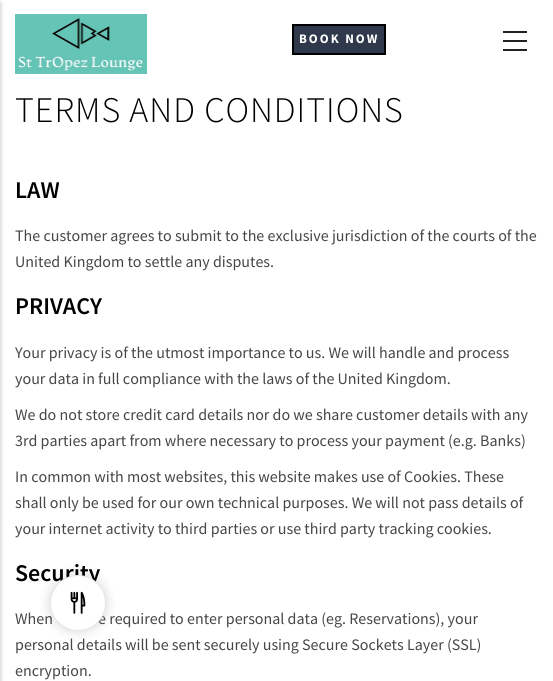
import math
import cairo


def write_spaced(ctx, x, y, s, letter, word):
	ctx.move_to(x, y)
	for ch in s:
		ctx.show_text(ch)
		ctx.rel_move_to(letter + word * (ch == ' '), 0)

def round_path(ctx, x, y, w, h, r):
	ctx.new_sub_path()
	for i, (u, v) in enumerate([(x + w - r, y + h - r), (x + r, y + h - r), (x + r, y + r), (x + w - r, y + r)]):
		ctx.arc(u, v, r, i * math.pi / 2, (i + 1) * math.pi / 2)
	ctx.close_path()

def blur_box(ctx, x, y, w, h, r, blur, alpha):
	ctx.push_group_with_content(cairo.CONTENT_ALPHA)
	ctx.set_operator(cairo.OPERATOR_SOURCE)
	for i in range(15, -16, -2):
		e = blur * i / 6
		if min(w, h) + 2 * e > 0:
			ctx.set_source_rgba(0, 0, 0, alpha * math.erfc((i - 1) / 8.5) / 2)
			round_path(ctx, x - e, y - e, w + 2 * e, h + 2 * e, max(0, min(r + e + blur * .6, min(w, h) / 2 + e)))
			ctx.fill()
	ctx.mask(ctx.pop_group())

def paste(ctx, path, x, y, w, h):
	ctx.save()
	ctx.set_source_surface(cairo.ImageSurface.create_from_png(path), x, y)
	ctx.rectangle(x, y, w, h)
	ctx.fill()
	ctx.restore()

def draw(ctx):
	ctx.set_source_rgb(1, 1, 1)
	ctx.paint()
	ctx.set_source_rgb(0, 0, 0)
	blur_box(ctx, -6, 3, 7, 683, 0, 2, 0.2)
	ctx.set_source_rgb(0.133, 0.133, 0.133)
	ctx.rectangle(503, 31, 24, 2)
	ctx.rectangle(503, 40, 24, 2)
	ctx.rectangle(503, 49, 24, 2)
	ctx.fill()
	paste(ctx, 'media/1.png', 15, 14, 132, 60)
	ctx.set_source_rgb(0.188, 0.224, 0.294)
	ctx.rectangle(293, 25, 92, 29)
	ctx.fill_preserve()
	ctx.set_source_rgb(0, 0, 0)
	ctx.stroke()
	ctx.select_font_face('Source Sans Pro', cairo.FONT_SLANT_NORMAL, cairo.FONT_WEIGHT_BOLD)
	ctx.set_font_size(13)
	ctx.set_source_rgb(1, 1, 1)
	write_spaced(ctx, 299, 43, 'BOOK NOW', 2, 0)
	ctx.select_font_face('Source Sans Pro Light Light')
	ctx.set_font_size(36)
	ctx.set_source_rgb(0, 0, 0)
	write_spaced(ctx, 15, 122, 'TERMS AND CONDITIONS', 1, 0)
	ctx.select_font_face('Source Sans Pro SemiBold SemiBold')
	ctx.set_font_size(24)
	ctx.move_to(15, 198)
	ctx.show_text('LAW')
	ctx.select_font_face('Source Sans Pro')
	ctx.set_font_size(16)
	ctx.set_source_rgb(0.275, 0.275, 0.275)
	ctx.move_to(15, 241)
	ctx.show_text('The customer agrees to submit to the exclusive jurisdiction of the courts of the')
	ctx.move_to(15, 267)
	ctx.show_text('United Kingdom to settle any disputes.')
	ctx.select_font_face('Source Sans Pro SemiBold SemiBold')
	ctx.set_font_size(24)
	ctx.set_source_rgb(0, 0, 0)
	ctx.move_to(15, 314)
	ctx.show_text('PRIVACY')
	ctx.select_font_face('Source Sans Pro')
	ctx.set_font_size(16)
	ctx.set_source_rgb(0.275, 0.275, 0.275)
	for x, y, s in [
		(15, 358, 'Your privacy is of the utmost importance to us. We will handle and process'),
		(15, 384, 'your data in full compliance with the laws of the United Kingdom.'),
		(15, 420, 'We do not store credit card details nor do we share customer details with any'),
		(15, 446, '3rd parties apart from where necessary to process your payment (e.g. Banks)'),
		(15, 482, 'In common with most websites, this website makes use of Cookies. These'),
		(15, 508, 'shall only be used for our own technical purposes. We will not pass details of'),
		(15, 534, 'your internet activity to third parties or use third party tracking cookies.'),
	]:
		ctx.move_to(x, y)
		ctx.show_text(s)
	ctx.select_font_face('Source Sans Pro SemiBold SemiBold')
	ctx.set_font_size(24)
	ctx.set_source_rgb(0, 0, 0)
	ctx.move_to(15, 581)
	ctx.show_text('Security')
	ctx.select_font_face('Source Sans Pro')
	ctx.set_font_size(16)
	ctx.set_source_rgb(0.275, 0.275, 0.275)
	for x, y, s in [
		(15, 624, 'When'),
		(98, 624, 'e required to enter personal data (eg. Reservations), your'),
		(15, 650, 'personal details will be sent securely using Secure Sockets Layer (SSL)'),
		(15, 676, 'encryption.'),
	]:
		ctx.move_to(x, y)
		ctx.show_text(s)
	ctx.set_source_rgb(0, 0, 0)
	blur_box(ctx, 47, 572, 62, 62, 31, 4.5, 0.1)
	ctx.set_source_rgb(1, 1, 1)
	ctx.arc(78, 603, 28, 0, 2 * math.pi)
	ctx.fill()
	ctx.arc(78, 603, 27.5, 0, 2 * math.pi)
	ctx.set_source_rgba(0, 0, 0, 0.1)
	ctx.set_line_width(1)
	ctx.stroke()
	paste(ctx, 'media/2.png', 70, 591, 16, 23)


surface = cairo.ImageSurface(cairo.FORMAT_RGB24, 553, 681)
ctx = cairo.Context(surface)
options = cairo.FontOptions()
options.set_hint_metrics(cairo.HINT_METRICS_OFF)
options.set_hint_style(cairo.HINT_STYLE_NONE)
ctx.set_font_options(options)
ctx.set_miter_limit(4)
draw(ctx)
surface.write_to_png('image.png')
